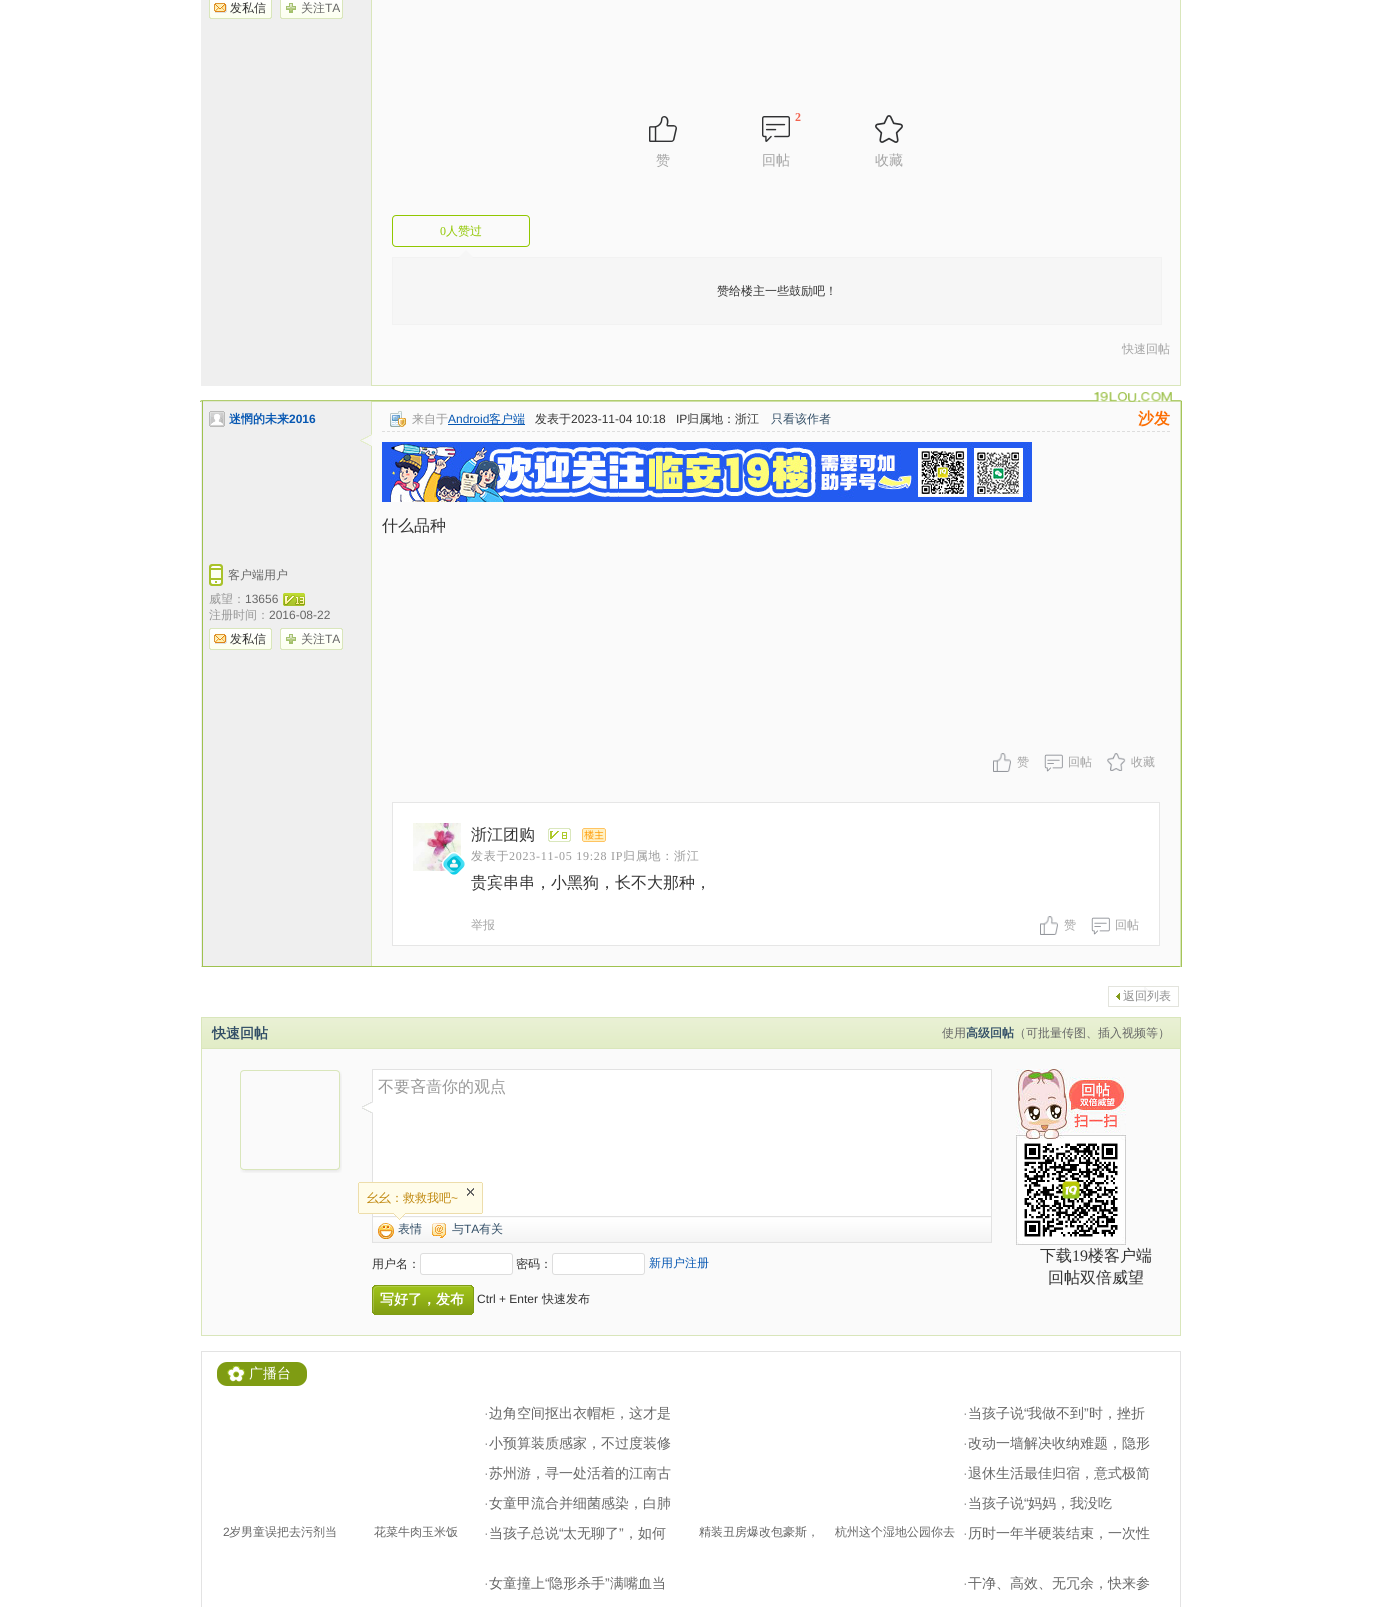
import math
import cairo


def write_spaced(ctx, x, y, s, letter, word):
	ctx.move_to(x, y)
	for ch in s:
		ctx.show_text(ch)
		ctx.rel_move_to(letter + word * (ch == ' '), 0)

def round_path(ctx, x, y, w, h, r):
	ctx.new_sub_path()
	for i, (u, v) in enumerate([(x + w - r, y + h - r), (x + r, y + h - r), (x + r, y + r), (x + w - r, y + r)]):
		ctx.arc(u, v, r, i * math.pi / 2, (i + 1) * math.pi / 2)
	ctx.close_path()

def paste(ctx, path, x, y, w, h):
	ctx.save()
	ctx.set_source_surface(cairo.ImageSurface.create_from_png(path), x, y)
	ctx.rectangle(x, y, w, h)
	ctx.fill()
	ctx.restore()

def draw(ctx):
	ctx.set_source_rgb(1, 1, 1)
	ctx.paint()
	ctx.set_source_rgb(0.937, 0.937, 0.937)
	ctx.rectangle(201, 0, 170, 386)
	ctx.fill()
	paste(ctx, 'media/1.png', 209, 0, 63, 19)
	paste(ctx, 'media/2.png', 214, 3, 13, 10)
	ctx.select_font_face('WenQuanYi Zen Hei Medium')
	ctx.set_font_size(12)
	ctx.set_source_rgb(0.2, 0.2, 0.2)
	ctx.move_to(230, 12)
	ctx.show_text('发私信')
	paste(ctx, 'media/1.png', 280, 0, 63, 19)
	paste(ctx, 'media/3.png', 286, 3, 10, 10)
	ctx.set_source_rgb(0.4, 0.4, 0.4)
	ctx.move_to(301, 12)
	ctx.show_text('关注')
	ctx.select_font_face('Liberation Sans')
	ctx.move_to(325, 12)
	ctx.show_text('TA')
	ctx.set_source_rgb(0.98, 0.98, 0.98)
	ctx.rectangle(372, 0, 808, 385)
	ctx.fill()
	ctx.set_source_rgb(0.851, 0.902, 0.733)
	ctx.rectangle(1180, 0, 1, 386)
	ctx.rectangle(371, 385, 810, 1)
	ctx.rectangle(371, 0, 1, 386)
	ctx.fill()
	paste(ctx, 'media/4.png', 649, 116, 28, 26)
	ctx.select_font_face('WenQuanYi Zen Hei Medium')
	ctx.set_font_size(14)
	ctx.set_source_rgb(0.643, 0.643, 0.643)
	ctx.move_to(656, 165)
	ctx.show_text('赞')
	paste(ctx, 'media/5.png', 762, 116, 28, 26)
	ctx.select_font_face('Liberation Serif', cairo.FONT_SLANT_NORMAL, cairo.FONT_WEIGHT_BOLD)
	ctx.set_font_size(12)
	ctx.set_source_rgb(0.949, 0.384, 0.306)
	ctx.move_to(795, 121)
	ctx.show_text('2')
	ctx.select_font_face('WenQuanYi Zen Hei Medium')
	ctx.set_font_size(14)
	ctx.set_source_rgb(0.643, 0.643, 0.643)
	ctx.move_to(762, 165)
	ctx.show_text('回帖')
	paste(ctx, 'media/6.png', 875, 115, 28, 28)
	ctx.move_to(875, 165)
	ctx.show_text('收藏')
	round_path(ctx, 392.5, 215.5, 137, 31, 3.5)
	ctx.set_source_rgb(0.569, 0.78, 0)
	ctx.set_line_width(1)
	ctx.stroke()
	ctx.select_font_face('Liberation Serif')
	ctx.set_font_size(12)
	ctx.move_to(440, 235)
	ctx.show_text('0')
	ctx.select_font_face('WenQuanYi Zen Hei Medium')
	ctx.move_to(446, 235)
	ctx.show_text('人赞过')
	ctx.set_source_rgb(0.961, 0.961, 0.961)
	ctx.rectangle(392.5, 257.5, 769, 67)
	ctx.fill_preserve()
	ctx.set_source_rgb(0.949, 0.949, 0.949)
	ctx.stroke()
	ctx.set_source_rgb(0.961, 0.961, 0.961)
	ctx.new_path()
	ctx.move_to(466, 250)
	ctx.line_to(473, 257)
	ctx.line_to(466, 264)
	ctx.line_to(459, 257)
	ctx.close_path()
	ctx.fill()
	ctx.set_source_rgb(0.2, 0.2, 0.2)
	ctx.move_to(717, 295)
	ctx.show_text('赞给楼主一些鼓励吧！')
	ctx.set_source_rgb(0.643, 0.643, 0.643)
	ctx.move_to(1122, 353)
	ctx.show_text('快速回帖')
	ctx.set_source_rgb(0.937, 0.937, 0.937)
	ctx.rectangle(201, 401, 170, 566)
	ctx.fill()
	ctx.set_source_rgb(0.98, 0.98, 0.98)
	ctx.rectangle(371.5, 401.5, 809, 565)
	ctx.fill_preserve()
	ctx.set_source_rgb(0.851, 0.902, 0.733)
	ctx.stroke()
	paste(ctx, 'media/7.png', 200, 392, 982, 10)
	ctx.set_source_rgb(0.624, 0.761, 0.31)
	ctx.rectangle(202, 401, 1, 566)
	ctx.fill()
	paste(ctx, 'media/8.png', 209, 411, 16, 16)
	ctx.select_font_face('WenQuanYi Zen Hei', cairo.FONT_SLANT_NORMAL, cairo.FONT_WEIGHT_BOLD)
	ctx.set_source_rgb(0.024, 0.341, 0.698)
	ctx.move_to(229, 423)
	ctx.show_text('迷惘的未来')
	ctx.select_font_face('Liberation Sans', cairo.FONT_SLANT_NORMAL, cairo.FONT_WEIGHT_BOLD)
	ctx.move_to(289, 423)
	ctx.show_text('2016')
	paste(ctx, 'media/9.png', 360, 434, 12, 12)
	paste(ctx, 'media/10.png', 209, 564, 14, 22)
	ctx.select_font_face('WenQuanYi Zen Hei Medium')
	ctx.set_source_rgb(0.4, 0.4, 0.4)
	ctx.move_to(228, 579)
	ctx.show_text('客户端用户')
	ctx.set_source_rgb(0.6, 0.6, 0.6)
	ctx.move_to(209, 603)
	ctx.show_text('威望：')
	ctx.select_font_face('Liberation Sans')
	ctx.set_source_rgb(0.4, 0.4, 0.4)
	ctx.move_to(245, 603)
	ctx.show_text('13656')
	paste(ctx, 'media/11.png', 283, 593, 22, 13)
	ctx.select_font_face('WenQuanYi Zen Hei Medium')
	ctx.set_source_rgb(0.6, 0.6, 0.6)
	ctx.move_to(209, 619)
	ctx.show_text('注册时间：')
	ctx.select_font_face('Liberation Sans')
	ctx.set_source_rgb(0.4, 0.4, 0.4)
	ctx.move_to(269, 619)
	ctx.show_text('2016-08-22')
	paste(ctx, 'media/12.png', 209, 628, 63, 22)
	paste(ctx, 'media/2.png', 214, 634, 13, 10)
	ctx.select_font_face('WenQuanYi Zen Hei Medium')
	ctx.set_source_rgb(0.2, 0.2, 0.2)
	ctx.move_to(230, 643)
	ctx.show_text('发私信')
	paste(ctx, 'media/12.png', 280, 628, 63, 22)
	paste(ctx, 'media/3.png', 286, 634, 10, 10)
	ctx.set_source_rgb(0.4, 0.4, 0.4)
	ctx.move_to(301, 643)
	ctx.show_text('关注')
	ctx.select_font_face('Liberation Sans')
	ctx.move_to(325, 643)
	ctx.show_text('TA')
	ctx.new_path()
	ctx.move_to(382, 431.5)
	ctx.line_to(1170, 431.5)
	ctx.set_source_rgb(0.867, 0.867, 0.867)
	ctx.set_dash([3, 2])
	ctx.stroke()
	paste(ctx, 'media/13.png', 390, 411, 16, 16)
	ctx.select_font_face('WenQuanYi Zen Hei Medium')
	ctx.set_source_rgb(0.6, 0.6, 0.6)
	ctx.move_to(412, 423)
	ctx.show_text('来自于')
	ctx.select_font_face('Liberation Sans')
	ctx.set_source_rgb(0.024, 0.341, 0.698)
	ctx.move_to(448, 423)
	ctx.show_text('Android')
	ctx.rectangle(448, 424, 77, 1)
	ctx.fill()
	ctx.select_font_face('WenQuanYi Zen Hei Medium')
	ctx.move_to(489, 423)
	ctx.show_text('客户端')
	ctx.set_source_rgb(0.2, 0.2, 0.2)
	ctx.move_to(535, 423)
	ctx.show_text('发表于')
	ctx.select_font_face('Liberation Sans')
	ctx.move_to(571, 423)
	ctx.show_text('2023-11-04 10:18')
	ctx.move_to(676, 423)
	ctx.show_text('IP')
	ctx.select_font_face('WenQuanYi Zen Hei Medium')
	ctx.move_to(687, 423)
	ctx.show_text('归属地：浙江')
	ctx.set_source_rgb(0.2, 0.31, 0.404)
	ctx.move_to(771, 423)
	ctx.show_text('只看该作者')
	ctx.select_font_face('WenQuanYi Zen Hei', cairo.FONT_SLANT_NORMAL, cairo.FONT_WEIGHT_BOLD)
	ctx.set_font_size(16)
	ctx.set_source_rgb(0.988, 0.427, 0.008)
	ctx.move_to(1138, 424)
	ctx.show_text('沙发')
	paste(ctx, 'media/14.png', 382, 442, 650, 60)
	ctx.select_font_face('WenQuanYi Zen Hei Medium')
	ctx.set_source_rgb(0.2, 0.2, 0.2)
	ctx.move_to(382, 531)
	ctx.show_text('什么品种')
	paste(ctx, 'media/15.png', 993, 753, 18, 19)
	ctx.set_font_size(12)
	ctx.set_source_rgb(0.643, 0.643, 0.643)
	ctx.move_to(1017, 766)
	ctx.show_text('赞')
	paste(ctx, 'media/16.png', 1044, 754, 19, 18)
	ctx.move_to(1068, 766)
	ctx.show_text('回帖')
	paste(ctx, 'media/17.png', 1107, 753, 19, 18)
	ctx.move_to(1131, 766)
	ctx.show_text('收藏')
	ctx.set_source_rgb(1, 1, 1)
	ctx.rectangle(392.5, 802.5, 767, 143)
	ctx.fill_preserve()
	ctx.set_source_rgb(0.902, 0.902, 0.902)
	ctx.set_dash([])
	ctx.stroke()
	paste(ctx, 'media/18.png', 413, 823, 48, 48)
	paste(ctx, 'media/19.png', 441, 851, 24, 24)
	ctx.set_font_size(16)
	ctx.set_source_rgb(0.2, 0.2, 0.2)
	ctx.move_to(471, 840)
	ctx.show_text('浙江团购')
	paste(ctx, 'media/20.png', 548, 828, 23, 14)
	paste(ctx, 'media/21.png', 582, 828, 24, 14)
	ctx.set_font_size(12)
	ctx.set_source_rgb(0.6, 0.6, 0.6)
	write_spaced(ctx, 471, 860, '发表于', 0.75, 0)
	ctx.select_font_face('Liberation Serif')
	write_spaced(ctx, 509, 860, '2023-11-05 19:28 IP', 0.75, 0)
	ctx.select_font_face('WenQuanYi Zen Hei Medium')
	write_spaced(ctx, 623, 860, '归属地：浙江', 0.75, 0)
	ctx.set_font_size(16)
	ctx.set_source_rgb(0.2, 0.2, 0.2)
	ctx.move_to(471, 888)
	ctx.show_text('贵宾串串，小黑狗，长不大那种，')
	ctx.set_font_size(12)
	ctx.set_source_rgb(0.643, 0.643, 0.643)
	ctx.move_to(471, 929)
	ctx.show_text('举报')
	paste(ctx, 'media/22.png', 1040, 916, 18, 19)
	ctx.move_to(1064, 929)
	ctx.show_text('赞')
	paste(ctx, 'media/23.png', 1091, 917, 19, 18)
	ctx.move_to(1115, 929)
	ctx.show_text('回帖')
	ctx.set_source_rgba(0.624, 0.757, 0.31, 0.94)
	ctx.rectangle(1181, 401, 1, 566)
	ctx.fill()
	paste(ctx, 'media/24.png', 201, 966, 980, 1)
	paste(ctx, 'media/25.png', 1116, 987, 32, 13)
	ctx.rectangle(1108.5, 986.5, 70, 20)
	ctx.set_source_rgb(0.89, 0.894, 0.867)
	ctx.stroke()
	ctx.set_source_rgb(0.561, 0.561, 0.561)
	ctx.move_to(1123, 1000)
	ctx.show_text('返回列表')
	paste(ctx, 'media/26.png', 202, 1018, 978, 30)
	ctx.set_source_rgb(0.851, 0.902, 0.733)
	ctx.rectangle(201, 1017, 980, 1)
	ctx.rectangle(1180, 1017, 1, 31)
	ctx.rectangle(201, 1017, 1, 31)
	ctx.fill()
	ctx.select_font_face('WenQuanYi Zen Hei', cairo.FONT_SLANT_NORMAL, cairo.FONT_WEIGHT_BOLD)
	ctx.set_font_size(14)
	ctx.set_source_rgb(0.2, 0.31, 0.404)
	ctx.move_to(212, 1038)
	ctx.show_text('快速回帖')
	ctx.select_font_face('WenQuanYi Zen Hei Medium')
	ctx.set_font_size(12)
	ctx.set_source_rgb(0.4, 0.4, 0.4)
	ctx.move_to(942, 1037)
	ctx.show_text('使用')
	ctx.select_font_face('WenQuanYi Zen Hei', cairo.FONT_SLANT_NORMAL, cairo.FONT_WEIGHT_BOLD)
	ctx.set_source_rgb(0.2, 0.31, 0.404)
	ctx.move_to(966, 1037)
	ctx.show_text('高级回帖')
	ctx.select_font_face('WenQuanYi Zen Hei Medium')
	ctx.set_source_rgb(0.4, 0.4, 0.4)
	ctx.move_to(1014, 1037)
	ctx.show_text('（可批量传图、插入视频等）')
	ctx.set_source_rgb(0.98, 0.98, 0.98)
	ctx.rectangle(201.5, 1048.5, 979, 287)
	ctx.fill_preserve()
	ctx.set_source_rgb(0.851, 0.902, 0.733)
	ctx.stroke()
	paste(ctx, 'media/27.png', 240, 1070, 102, 103)
	ctx.set_source_rgb(1, 1, 1)
	ctx.rectangle(373, 1070, 618, 146)
	ctx.fill()
	ctx.set_source_rgb(0.886, 0.886, 0.886)
	ctx.rectangle(372, 1069, 620, 1)
	ctx.rectangle(991, 1069, 1, 147)
	ctx.rectangle(372, 1069, 1, 147)
	ctx.fill()
	ctx.set_font_size(16)
	ctx.set_source_rgb(0.6, 0.6, 0.6)
	ctx.move_to(378, 1092)
	ctx.show_text('不要吝啬你的观点')
	paste(ctx, 'media/28.png', 362, 1102, 11, 11)
	paste(ctx, 'media/29.png', 373, 1218, 618, 24)
	ctx.set_source_rgb(0.886, 0.886, 0.886)
	ctx.rectangle(372, 1216, 620, 1)
	ctx.rectangle(991, 1216, 1, 27)
	ctx.fill()
	ctx.set_source_rgb(0.89, 0.89, 0.89)
	ctx.rectangle(372, 1242, 620, 1)
	ctx.fill()
	ctx.set_source_rgb(0.886, 0.886, 0.886)
	ctx.rectangle(372, 1216, 1, 27)
	ctx.fill()
	paste(ctx, 'media/30.png', 378, 1223, 16, 16)
	ctx.set_source_rgb(1, 0.988, 0.914)
	ctx.rectangle(358, 1182, 125, 32)
	ctx.fill()
	ctx.set_source_rgb(0.929, 0.867, 0.671)
	ctx.rectangle(359, 1182, 123, 1)
	ctx.rectangle(482, 1183, 1, 30)
	ctx.rectangle(358, 1183, 1, 30)
	ctx.fill()
	ctx.set_font_size(12)
	ctx.set_source_rgb(0.753, 0.533, 0.059)
	ctx.move_to(367, 1202)
	ctx.show_text('幺幺：救救我吧')
	ctx.select_font_face('Liberation Sans')
	ctx.move_to(451, 1202)
	ctx.show_text('~')
	paste(ctx, 'media/31.png', 467, 1188, 7, 8)
	ctx.set_source_rgb(0.929, 0.867, 0.671)
	ctx.rectangle(359, 1213, 123, 1)
	ctx.fill()
	paste(ctx, 'media/32.png', 394, 1213, 11, 7)
	ctx.select_font_face('WenQuanYi Zen Hei Medium')
	ctx.set_source_rgb(0.2, 0.31, 0.404)
	ctx.move_to(398, 1233)
	ctx.show_text('表情')
	paste(ctx, 'media/33.png', 432, 1223, 14, 15)
	ctx.move_to(452, 1233)
	ctx.show_text('与')
	ctx.select_font_face('Liberation Sans')
	ctx.move_to(464, 1233)
	ctx.show_text('TA')
	ctx.select_font_face('WenQuanYi Zen Hei Medium')
	ctx.move_to(479, 1233)
	ctx.show_text('有关')
	ctx.set_source_rgb(0.2, 0.2, 0.2)
	ctx.move_to(372, 1268)
	ctx.show_text('用户名：')
	ctx.set_source_rgb(1, 1, 1)
	round_path(ctx, 420.5, 1253.5, 92, 21, 2.5)
	ctx.fill_preserve()
	ctx.set_source_rgb(0.867, 0.867, 0.867)
	ctx.stroke()
	ctx.set_source_rgb(0.2, 0.2, 0.2)
	ctx.move_to(516, 1268)
	ctx.show_text('密码：')
	ctx.set_source_rgb(1, 1, 1)
	round_path(ctx, 552.5, 1253.5, 92, 21, 2.5)
	ctx.fill_preserve()
	ctx.set_source_rgb(0.867, 0.867, 0.867)
	ctx.stroke()
	ctx.set_source_rgb(0.024, 0.341, 0.698)
	ctx.move_to(649, 1267)
	ctx.show_text('新用户注册')
	paste(ctx, 'media/34.png', 1016, 1069, 110, 176)
	ctx.set_font_size(16)
	ctx.set_source_rgb(0.2, 0.2, 0.2)
	ctx.move_to(1040, 1261)
	ctx.show_text('下载')
	ctx.select_font_face('Liberation Serif')
	ctx.move_to(1072, 1261)
	ctx.show_text('19')
	ctx.select_font_face('WenQuanYi Zen Hei Medium')
	ctx.move_to(1088, 1261)
	ctx.show_text('楼客户端')
	ctx.move_to(1048, 1283)
	ctx.show_text('回帖双倍威望')
	paste(ctx, 'media/35.png', 372, 1285, 10, 30)
	paste(ctx, 'media/36.png', 382, 1285, 92, 30)
	ctx.select_font_face('WenQuanYi Zen Hei', cairo.FONT_SLANT_NORMAL, cairo.FONT_WEIGHT_BOLD)
	ctx.set_font_size(14)
	ctx.set_source_rgb(1, 1, 1)
	ctx.move_to(380, 1304)
	ctx.show_text('写好了，发布')
	ctx.select_font_face('Liberation Sans')
	ctx.set_font_size(12)
	ctx.set_source_rgb(0.2, 0.2, 0.2)
	ctx.move_to(477, 1303)
	ctx.show_text('Ctrl + Enter')
	ctx.select_font_face('WenQuanYi Zen Hei Medium')
	ctx.move_to(542, 1303)
	ctx.show_text('快速发布')
	ctx.rectangle(201.5, 1351.5, 979, 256)
	ctx.set_source_rgb(0.89, 0.89, 0.89)
	ctx.stroke()
	ctx.set_source_rgb(0.498, 0.612, 0.078)
	round_path(ctx, 217, 1362, 90, 24, 10)
	ctx.fill()
	paste(ctx, 'media/37.png', 227, 1366, 18, 16)
	ctx.set_font_size(14)
	ctx.set_source_rgb(1, 1, 1)
	ctx.move_to(249, 1378)
	ctx.show_text('广播台')
	ctx.select_font_face('Liberation Sans')
	ctx.set_source_rgb(0.6, 0.6, 0.6)
	ctx.move_to(484, 1418)
	ctx.show_text('·')
	ctx.select_font_face('WenQuanYi Zen Hei Medium')
	ctx.set_source_rgb(0.4, 0.4, 0.4)
	ctx.move_to(489, 1418)
	ctx.show_text('边角空间抠出衣帽柜，这才是')
	ctx.select_font_face('Liberation Sans')
	ctx.set_source_rgb(0.6, 0.6, 0.6)
	ctx.move_to(484, 1448)
	ctx.show_text('·')
	ctx.select_font_face('WenQuanYi Zen Hei Medium')
	ctx.set_source_rgb(0.4, 0.4, 0.4)
	ctx.move_to(489, 1448)
	ctx.show_text('小预算装质感家，不过度装修')
	ctx.select_font_face('Liberation Sans')
	ctx.set_source_rgb(0.6, 0.6, 0.6)
	ctx.move_to(484, 1478)
	ctx.show_text('·')
	ctx.select_font_face('WenQuanYi Zen Hei Medium')
	ctx.set_source_rgb(0.4, 0.4, 0.4)
	ctx.move_to(489, 1478)
	ctx.show_text('苏州游，寻一处活着的江南古')
	ctx.select_font_face('Liberation Sans')
	ctx.set_source_rgb(0.6, 0.6, 0.6)
	ctx.move_to(484, 1508)
	ctx.show_text('·')
	ctx.select_font_face('WenQuanYi Zen Hei Medium')
	ctx.set_source_rgb(0.4, 0.4, 0.4)
	ctx.move_to(489, 1508)
	ctx.show_text('女童甲流合并细菌感染，白肺')
	ctx.select_font_face('Liberation Sans')
	ctx.set_font_size(12)
	ctx.move_to(223, 1536)
	ctx.show_text('2')
	ctx.select_font_face('WenQuanYi Zen Hei Medium')
	ctx.move_to(229, 1536)
	ctx.show_text('岁男童误把去污剂当')
	ctx.move_to(374, 1536)
	ctx.show_text('花菜牛肉玉米饭')
	ctx.set_font_size(14)
	ctx.move_to(489, 1538)
	ctx.show_text('当孩子总说')
	ctx.select_font_face('Liberation Sans')
	ctx.move_to(559, 1538)
	ctx.show_text('“')
	ctx.select_font_face('WenQuanYi Zen Hei Medium')
	ctx.move_to(563, 1538)
	ctx.show_text('太无聊了')
	ctx.select_font_face('Liberation Sans')
	ctx.move_to(619, 1538)
	ctx.show_text('”')
	ctx.select_font_face('WenQuanYi Zen Hei Medium')
	ctx.move_to(624, 1538)
	ctx.show_text('，如何')
	ctx.select_font_face('Liberation Sans')
	ctx.set_source_rgb(0.6, 0.6, 0.6)
	ctx.move_to(484, 1538)
	ctx.show_text('·')
	ctx.select_font_face('WenQuanYi Zen Hei Medium')
	ctx.set_source_rgb(0.4, 0.4, 0.4)
	ctx.move_to(968, 1418)
	ctx.show_text('当孩子说')
	ctx.select_font_face('Liberation Sans')
	ctx.move_to(1024, 1418)
	ctx.show_text('“')
	ctx.select_font_face('WenQuanYi Zen Hei Medium')
	ctx.move_to(1028, 1418)
	ctx.show_text('我做不到')
	ctx.select_font_face('Liberation Sans')
	ctx.move_to(1084, 1418)
	ctx.show_text('”')
	ctx.select_font_face('WenQuanYi Zen Hei Medium')
	ctx.move_to(1089, 1418)
	ctx.show_text('时，挫折')
	ctx.select_font_face('Liberation Sans')
	ctx.set_source_rgb(0.6, 0.6, 0.6)
	ctx.move_to(963, 1418)
	ctx.show_text('·')
	ctx.move_to(963, 1448)
	ctx.show_text('·')
	ctx.select_font_face('WenQuanYi Zen Hei Medium')
	ctx.set_source_rgb(0.4, 0.4, 0.4)
	ctx.move_to(968, 1448)
	ctx.show_text('改动一墙解决收纳难题，隐形')
	ctx.select_font_face('Liberation Sans')
	ctx.set_source_rgb(0.6, 0.6, 0.6)
	ctx.move_to(963, 1478)
	ctx.show_text('·')
	ctx.select_font_face('WenQuanYi Zen Hei Medium')
	ctx.set_source_rgb(0.4, 0.4, 0.4)
	ctx.move_to(968, 1478)
	ctx.show_text('退休生活最佳归宿，意式极简')
	ctx.move_to(968, 1508)
	ctx.show_text('当孩子说')
	ctx.select_font_face('Liberation Sans')
	ctx.move_to(1024, 1508)
	ctx.show_text('“')
	ctx.select_font_face('WenQuanYi Zen Hei Medium')
	ctx.move_to(1028, 1508)
	ctx.show_text('妈妈，我没吃')
	ctx.select_font_face('Liberation Sans')
	ctx.set_source_rgb(0.6, 0.6, 0.6)
	ctx.move_to(963, 1508)
	ctx.show_text('·')
	ctx.select_font_face('WenQuanYi Zen Hei Medium')
	ctx.set_font_size(12)
	ctx.set_source_rgb(0.4, 0.4, 0.4)
	ctx.move_to(699, 1536)
	ctx.show_text('精装丑房爆改包豪斯，')
	ctx.move_to(835, 1536)
	ctx.show_text('杭州这个湿地公园你去')
	ctx.select_font_face('Liberation Sans')
	ctx.set_font_size(14)
	ctx.set_source_rgb(0.6, 0.6, 0.6)
	ctx.move_to(963, 1538)
	ctx.show_text('·')
	ctx.select_font_face('WenQuanYi Zen Hei Medium')
	ctx.set_source_rgb(0.4, 0.4, 0.4)
	ctx.move_to(968, 1538)
	ctx.show_text('历时一年半硬装结束，一次性')
	ctx.move_to(489, 1588)
	ctx.show_text('女童撞上')
	ctx.select_font_face('Liberation Sans')
	ctx.move_to(545, 1588)
	ctx.show_text('“')
	ctx.select_font_face('WenQuanYi Zen Hei Medium')
	ctx.move_to(549, 1588)
	ctx.show_text('隐形杀手')
	ctx.select_font_face('Liberation Sans')
	ctx.move_to(605, 1588)
	ctx.show_text('”')
	ctx.select_font_face('WenQuanYi Zen Hei Medium')
	ctx.move_to(610, 1588)
	ctx.show_text('满嘴血当')
	ctx.select_font_face('Liberation Sans')
	ctx.set_source_rgb(0.6, 0.6, 0.6)
	ctx.move_to(484, 1588)
	ctx.show_text('·')
	ctx.move_to(963, 1588)
	ctx.show_text('·')
	ctx.select_font_face('WenQuanYi Zen Hei Medium')
	ctx.set_source_rgb(0.4, 0.4, 0.4)
	ctx.move_to(968, 1588)
	ctx.show_text('干净、高效、无冗余，快来参')


surface = cairo.ImageSurface(cairo.FORMAT_RGB24, 1382, 1607)
ctx = cairo.Context(surface)
options = cairo.FontOptions()
options.set_hint_metrics(cairo.HINT_METRICS_OFF)
options.set_hint_style(cairo.HINT_STYLE_NONE)
ctx.set_font_options(options)
ctx.set_miter_limit(4)
draw(ctx)
surface.write_to_png('image.png')
